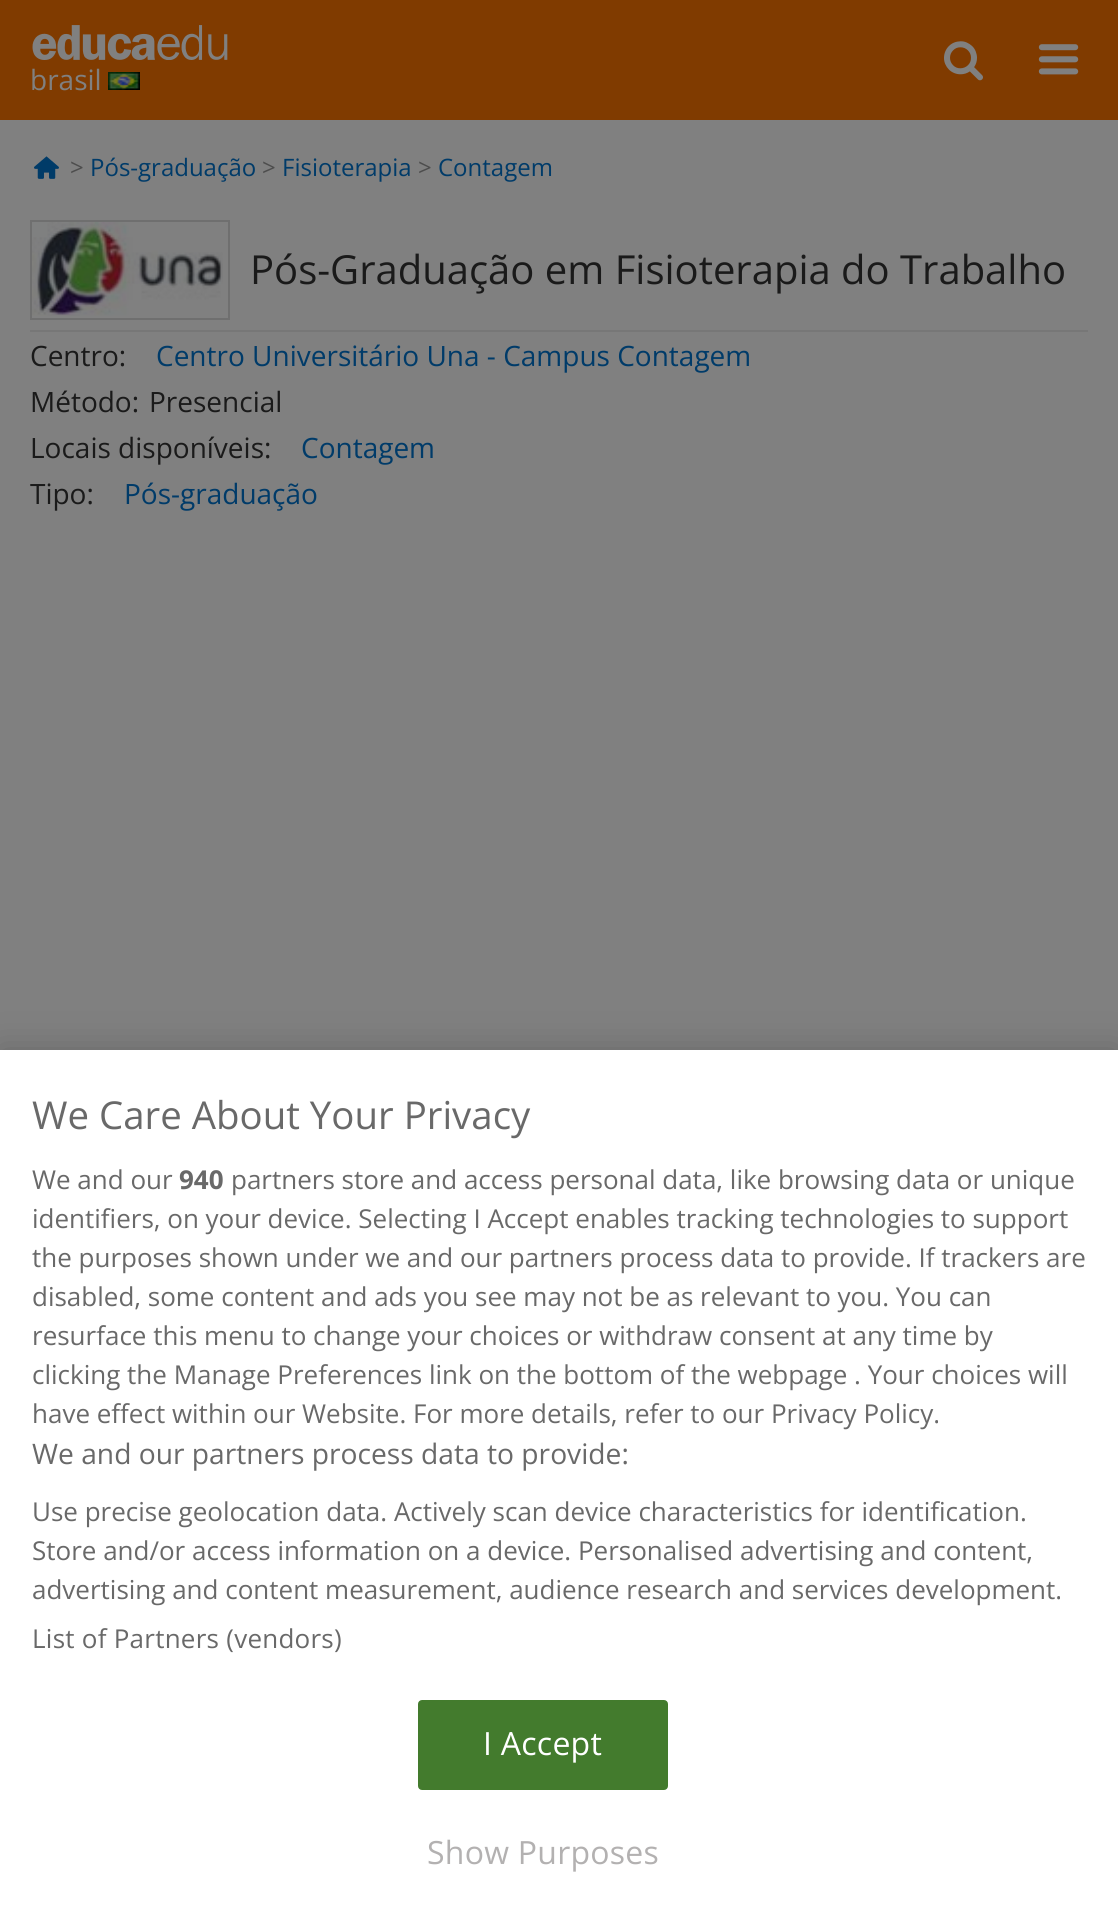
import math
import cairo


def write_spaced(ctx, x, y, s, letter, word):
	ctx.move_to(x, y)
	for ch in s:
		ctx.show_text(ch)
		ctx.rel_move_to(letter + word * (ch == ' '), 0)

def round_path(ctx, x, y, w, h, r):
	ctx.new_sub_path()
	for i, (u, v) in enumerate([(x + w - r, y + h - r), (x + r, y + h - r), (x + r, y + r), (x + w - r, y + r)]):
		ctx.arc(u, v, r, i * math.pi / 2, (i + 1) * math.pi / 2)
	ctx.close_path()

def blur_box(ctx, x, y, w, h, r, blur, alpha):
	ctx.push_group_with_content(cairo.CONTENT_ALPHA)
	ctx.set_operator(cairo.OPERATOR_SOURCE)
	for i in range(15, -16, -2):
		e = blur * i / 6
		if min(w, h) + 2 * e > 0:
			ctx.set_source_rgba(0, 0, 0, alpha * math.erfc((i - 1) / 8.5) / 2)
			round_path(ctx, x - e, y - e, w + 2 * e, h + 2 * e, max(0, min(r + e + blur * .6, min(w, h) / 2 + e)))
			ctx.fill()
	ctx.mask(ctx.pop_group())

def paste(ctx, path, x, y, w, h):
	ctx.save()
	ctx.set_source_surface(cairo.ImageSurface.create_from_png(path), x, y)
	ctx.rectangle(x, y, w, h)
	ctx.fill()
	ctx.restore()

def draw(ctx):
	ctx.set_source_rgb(0.502, 0.502, 0.502)
	ctx.paint()
	ctx.set_source_rgb(0.502, 0.231, 0)
	ctx.rectangle(0, 0, 1118, 120)
	ctx.fill()
	paste(ctx, 'media/1.png', 944, 41, 39, 40)
	paste(ctx, 'media/2.png', 1038, 44, 41, 31)
	paste(ctx, 'media/3.png', 32, 25, 196, 35)
	ctx.select_font_face('Open Sans')
	ctx.set_font_size(28)
	ctx.set_source_rgb(0.502, 0.502, 0.502)
	ctx.move_to(30, 90)
	ctx.show_text('brasil')
	paste(ctx, 'media/4.png', 108, 72, 32, 18)
	paste(ctx, 'media/5.png', 34, 156, 25, 23)
	ctx.set_font_size(24)
	ctx.set_source_rgb(0.302, 0.302, 0.302)
	ctx.move_to(70, 176)
	ctx.show_text('>')
	ctx.set_source_rgb(0, 0.231, 0.412)
	ctx.move_to(90, 176)
	ctx.show_text('Pós-graduação')
	ctx.set_source_rgb(0.302, 0.302, 0.302)
	ctx.move_to(262, 176)
	ctx.show_text('>')
	ctx.set_source_rgb(0, 0.231, 0.412)
	ctx.move_to(282, 176)
	ctx.show_text('Fisioterapia')
	ctx.set_source_rgb(0.302, 0.302, 0.302)
	ctx.move_to(418, 176)
	ctx.show_text('>')
	ctx.set_source_rgb(0, 0.231, 0.412)
	ctx.move_to(438, 176)
	ctx.show_text('Contagem')
	ctx.set_source_rgb(0.467, 0.467, 0.467)
	ctx.rectangle(30, 330, 1058, 2)
	ctx.fill()
	ctx.rectangle(31, 221, 198, 98)
	ctx.set_source_rgb(0.435, 0.435, 0.435)
	ctx.stroke()
	paste(ctx, 'media/6.png', 32, 222, 191, 94)
	ctx.set_font_size(40)
	ctx.set_source_rgb(0.102, 0.102, 0.102)
	ctx.move_to(250, 284)
	ctx.show_text('Pós-Graduação em Fisioterapia do Trabalho')
	ctx.set_font_size(28)
	ctx.move_to(30, 366)
	ctx.show_text('Centro:')
	ctx.set_source_rgb(0, 0.231, 0.412)
	ctx.move_to(156, 366)
	ctx.show_text('Centro Universitário Una - Campus Contagem')
	ctx.set_source_rgb(0.102, 0.102, 0.102)
	for x, y, s in [
		(30, 412, 'Método:'),
		(149, 412, 'Presencial'),
		(30, 458, 'Locais disponíveis:'),
	]:
		ctx.move_to(x, y)
		ctx.show_text(s)
	ctx.set_source_rgb(0, 0.231, 0.412)
	ctx.move_to(301, 458)
	ctx.show_text('Contagem')
	ctx.set_source_rgb(0.102, 0.102, 0.102)
	ctx.move_to(30, 504)
	ctx.show_text('Tipo:')
	ctx.set_source_rgb(0, 0.231, 0.412)
	ctx.move_to(124, 504)
	ctx.show_text('Pós-graduação')
	ctx.set_source_rgb(0, 0, 0)
	blur_box(ctx, 0, 1050, 1118, 866, 0, 18, 0.2)
	ctx.set_source_rgb(1, 1, 1)
	ctx.rectangle(0, 1050, 1118, 866)
	ctx.fill()
	ctx.set_font_size(38.4)
	ctx.set_source_rgb(0.412, 0.412, 0.412)
	ctx.move_to(32, 1129)
	ctx.show_text('We Care About Your Privacy')
	ctx.set_font_size(26)
	ctx.move_to(32, 1189)
	ctx.show_text('We and our')
	ctx.select_font_face('Open Sans', cairo.FONT_SLANT_NORMAL, cairo.FONT_WEIGHT_BOLD)
	ctx.move_to(179, 1189)
	ctx.show_text('940')
	ctx.select_font_face('Open Sans')
	for x, y, s in [
		(231, 1189, 'partners store and access personal data, like browsing data or unique'),
		(32, 1228, 'identifiers, on your device. Selecting I Accept enables tracking technologies to support'),
		(32, 1267, 'the purposes shown under we and our partners process data to provide. If trackers are'),
		(32, 1306, 'disabled, some content and ads you see may not be as relevant to you. You can'),
		(32, 1345, 'resurface this menu to change your choices or withdraw consent at any time by'),
		(32, 1384, 'clicking the Manage Preferences link on the bottom of the webpage . Your choices will'),
		(32, 1423, 'have effect within our Website. For more details, refer to our Privacy Policy.'),
	]:
		ctx.move_to(x, y)
		ctx.show_text(s)
	ctx.set_font_size(28.2)
	ctx.move_to(32, 1464)
	ctx.show_text('We and our partners process data to provide:')
	ctx.set_font_size(26)
	for x, y, s in [
		(32, 1521, 'Use precise geolocation data. Actively scan device characteristics for identification.'),
		(32, 1560, 'Store and/or access information on a device. Personalised advertising and content,'),
		(32, 1599, 'advertising and content measurement, audience research and services development.'),
	]:
		ctx.move_to(x, y)
		ctx.show_text(s)
	write_spaced(ctx, 32, 1648, 'List of Partners (vendors)', 0.25, 0)
	ctx.set_source_rgb(0.263, 0.482, 0.176)
	round_path(ctx, 419, 1701, 248, 88, 3)
	ctx.fill_preserve()
	ctx.stroke()
	ctx.set_font_size(32)
	ctx.set_source_rgb(1, 1, 1)
	write_spaced(ctx, 483, 1755, 'I Accept', 0.25, 0)
	ctx.set_source_rgb(0.702, 0.694, 0.694)
	write_spaced(ctx, 427, 1864, 'Show Purposes', 0.25, 0)


surface = cairo.ImageSurface(cairo.FORMAT_RGB24, 1118, 1916)
ctx = cairo.Context(surface)
options = cairo.FontOptions()
options.set_hint_metrics(cairo.HINT_METRICS_OFF)
options.set_hint_style(cairo.HINT_STYLE_NONE)
ctx.set_font_options(options)
ctx.set_miter_limit(4)
draw(ctx)
surface.write_to_png('image.png')
